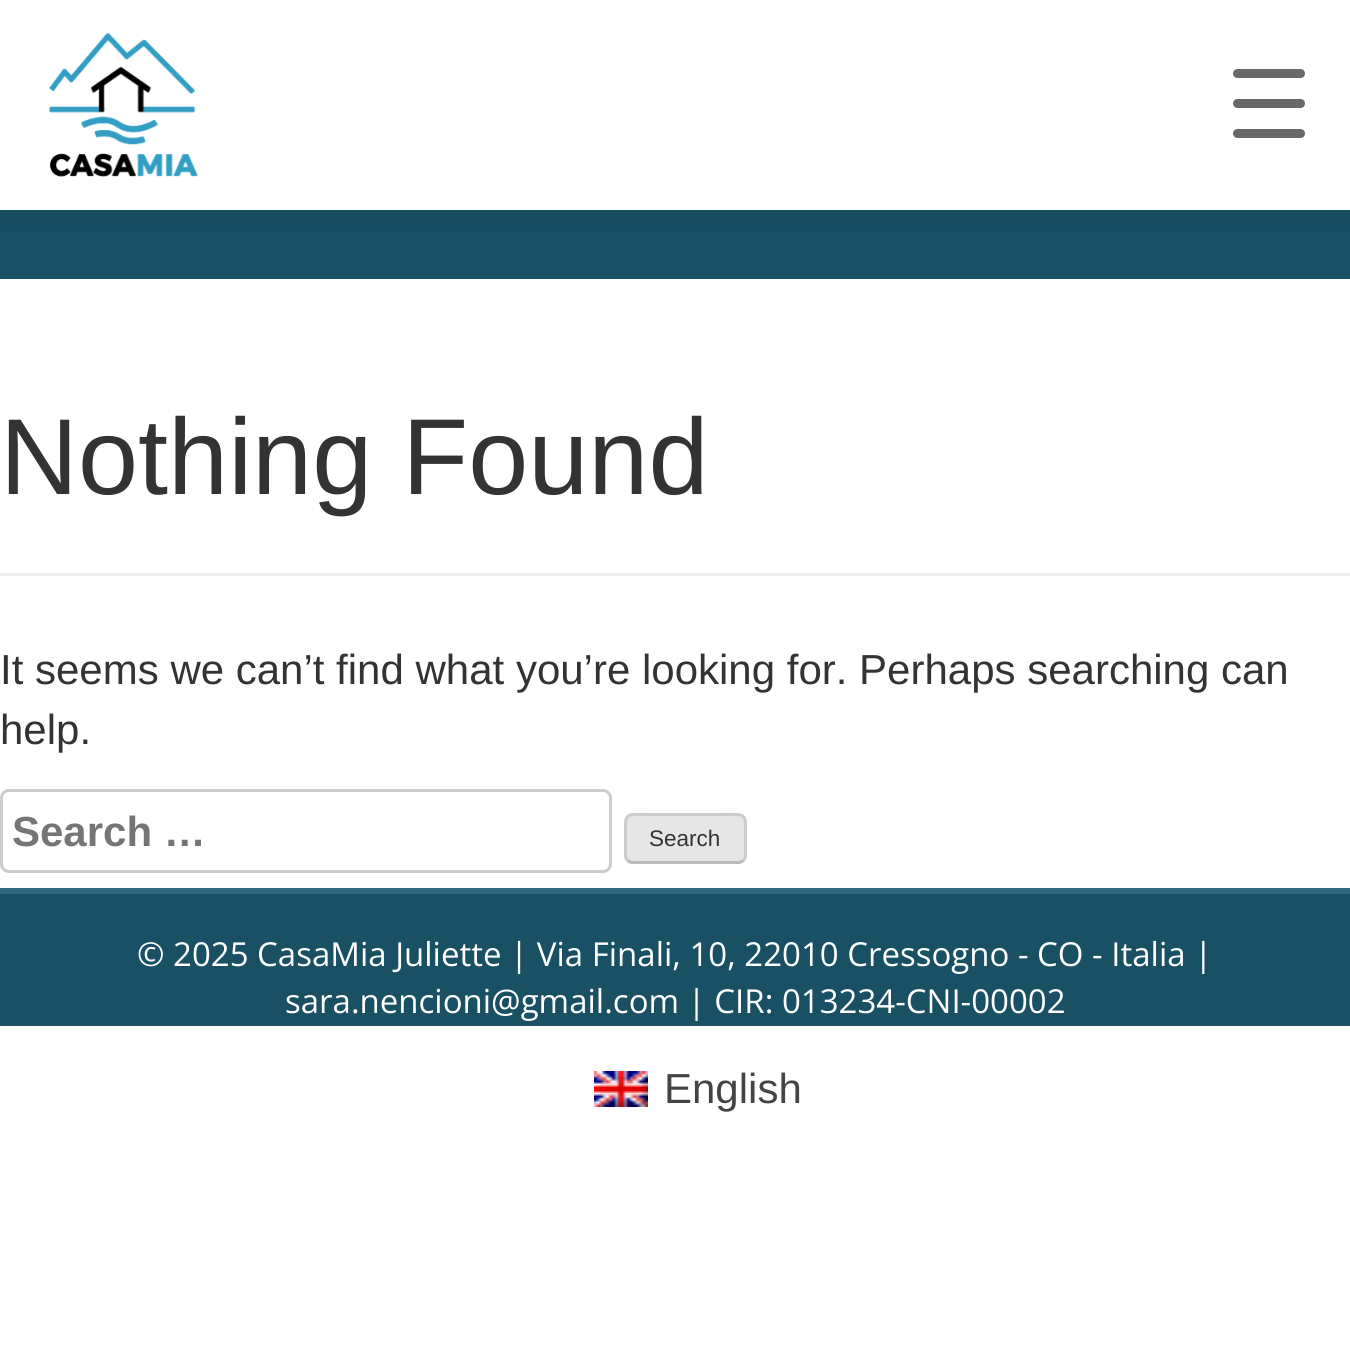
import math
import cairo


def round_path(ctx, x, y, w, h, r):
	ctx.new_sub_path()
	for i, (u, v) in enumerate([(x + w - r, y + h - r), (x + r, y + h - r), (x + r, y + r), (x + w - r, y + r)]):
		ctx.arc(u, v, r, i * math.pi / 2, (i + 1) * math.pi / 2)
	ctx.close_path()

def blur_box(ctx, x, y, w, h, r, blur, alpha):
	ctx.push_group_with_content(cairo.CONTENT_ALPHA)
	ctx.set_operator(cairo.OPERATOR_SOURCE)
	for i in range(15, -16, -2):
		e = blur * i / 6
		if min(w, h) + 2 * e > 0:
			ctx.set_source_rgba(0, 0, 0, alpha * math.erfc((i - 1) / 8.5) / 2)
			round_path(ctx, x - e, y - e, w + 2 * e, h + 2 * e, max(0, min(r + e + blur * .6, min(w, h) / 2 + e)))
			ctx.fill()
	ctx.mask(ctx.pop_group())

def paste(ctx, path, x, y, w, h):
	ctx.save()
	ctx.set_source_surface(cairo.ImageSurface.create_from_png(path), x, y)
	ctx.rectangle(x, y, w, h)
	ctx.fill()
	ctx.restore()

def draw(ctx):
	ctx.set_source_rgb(1, 1, 1)
	ctx.paint()
	ctx.set_source_rgb(0.098, 0.314, 0.392)
	ctx.rectangle(0, 210, 1350, 69)
	ctx.fill()
	ctx.set_source_rgb(0, 0, 0)
	blur_box(ctx, 0, 0, 1350, 210, 0, 15, 0.1)
	ctx.set_source_rgb(1, 1, 1)
	ctx.rectangle(0, 0, 1350, 210)
	ctx.fill()
	paste(ctx, 'media/1.png', 49, 32, 150, 145)
	ctx.set_source_rgb(0.408, 0.408, 0.408)
	round_path(ctx, 1233, 99, 72, 9, 4.5)
	ctx.fill()
	round_path(ctx, 1233, 69, 72, 9, 4.5)
	ctx.fill()
	round_path(ctx, 1233, 129, 72, 9, 4.5)
	ctx.fill()
	ctx.set_source_rgb(0.933, 0.933, 0.933)
	ctx.rectangle(0, 573, 1350, 3)
	ctx.fill()
	ctx.select_font_face('Liberation Sans')
	ctx.set_font_size(108)
	ctx.set_source_rgb(0.2, 0.2, 0.2)
	ctx.move_to(0, 494)
	ctx.show_text('Nothing Found')
	ctx.set_font_size(42)
	ctx.move_to(0, 684)
	ctx.show_text('It seems we can’t find what you’re looking for. Perhaps searching can')
	ctx.move_to(0, 744)
	ctx.show_text('help.')
	round_path(ctx, 1.5, 790.5, 609, 81, 7.5)
	ctx.set_source_rgb(0.8, 0.8, 0.8)
	ctx.set_line_width(3)
	ctx.stroke()
	ctx.select_font_face('Liberation Sans', cairo.FONT_SLANT_NORMAL, cairo.FONT_WEIGHT_BOLD)
	ctx.set_source_rgb(0.459, 0.459, 0.459)
	ctx.move_to(12, 846)
	ctx.show_text('Search …')
	ctx.set_source_rgb(0.902, 0.902, 0.902)
	round_path(ctx, 624, 813, 123, 51, 9)
	ctx.fill()
	ctx.new_path()
	ctx.move_to(743.5, 860.5)
	ctx.curve_to(742, 861.5, 740, 862.5, 738, 862.5)
	ctx.line_to(633, 862.5)
	ctx.curve_to(631, 862.5, 629, 861.5, 627.5, 860.5)
	ctx.set_source_rgb(0.733, 0.733, 0.733)
	ctx.stroke()
	ctx.new_path()
	ctx.move_to(627.5, 860.5)
	ctx.curve_to(625, 857.5, 625.5, 853.5, 625.5, 849.5)
	ctx.line_to(625.5, 838.5)
	ctx.curve_to(625.5, 812, 623, 814.5, 650.5, 814.5)
	ctx.line_to(720.5, 814.5)
	ctx.curve_to(748, 814.5, 745.5, 812, 745.5, 838.5)
	ctx.line_to(745.5, 849.5)
	ctx.curve_to(745.5, 853.5, 746, 857.5, 743.5, 860.5)
	ctx.set_source_rgb(0.8, 0.8, 0.8)
	ctx.stroke()
	ctx.select_font_face('Liberation Sans')
	ctx.set_font_size(22.5)
	ctx.set_source_rgb(0.2, 0.2, 0.2)
	ctx.move_to(649, 846)
	ctx.show_text('Search')
	ctx.set_source_rgb(0.098, 0.314, 0.392)
	ctx.rectangle(0, 894, 1350, 132)
	ctx.fill()
	ctx.set_source_rgb(0.192, 0.408, 0.486)
	ctx.rectangle(0, 888, 1350, 6)
	ctx.fill()
	ctx.select_font_face('Open Sans')
	ctx.set_font_size(33)
	ctx.set_source_rgb(1, 1, 1)
	ctx.move_to(137, 966)
	ctx.show_text('© 2025 CasaMia Juliette | Via Finali, 10, 22010 Cressogno - CO - Italia |')
	ctx.move_to(285, 1013)
	ctx.show_text('sara.nencioni@gmail.com | CIR: 013234-CNI-00002')
	paste(ctx, 'media/2.png', 594, 1071, 54, 36)
	ctx.select_font_face('Liberation Sans')
	ctx.set_font_size(42)
	ctx.set_source_rgb(0.267, 0.267, 0.267)
	ctx.move_to(664, 1103)
	ctx.show_text('English')


surface = cairo.ImageSurface(cairo.FORMAT_RGB24, 1350, 1356)
ctx = cairo.Context(surface)
options = cairo.FontOptions()
options.set_hint_metrics(cairo.HINT_METRICS_OFF)
options.set_hint_style(cairo.HINT_STYLE_NONE)
ctx.set_font_options(options)
ctx.set_miter_limit(4)
draw(ctx)
surface.write_to_png('image.png')
